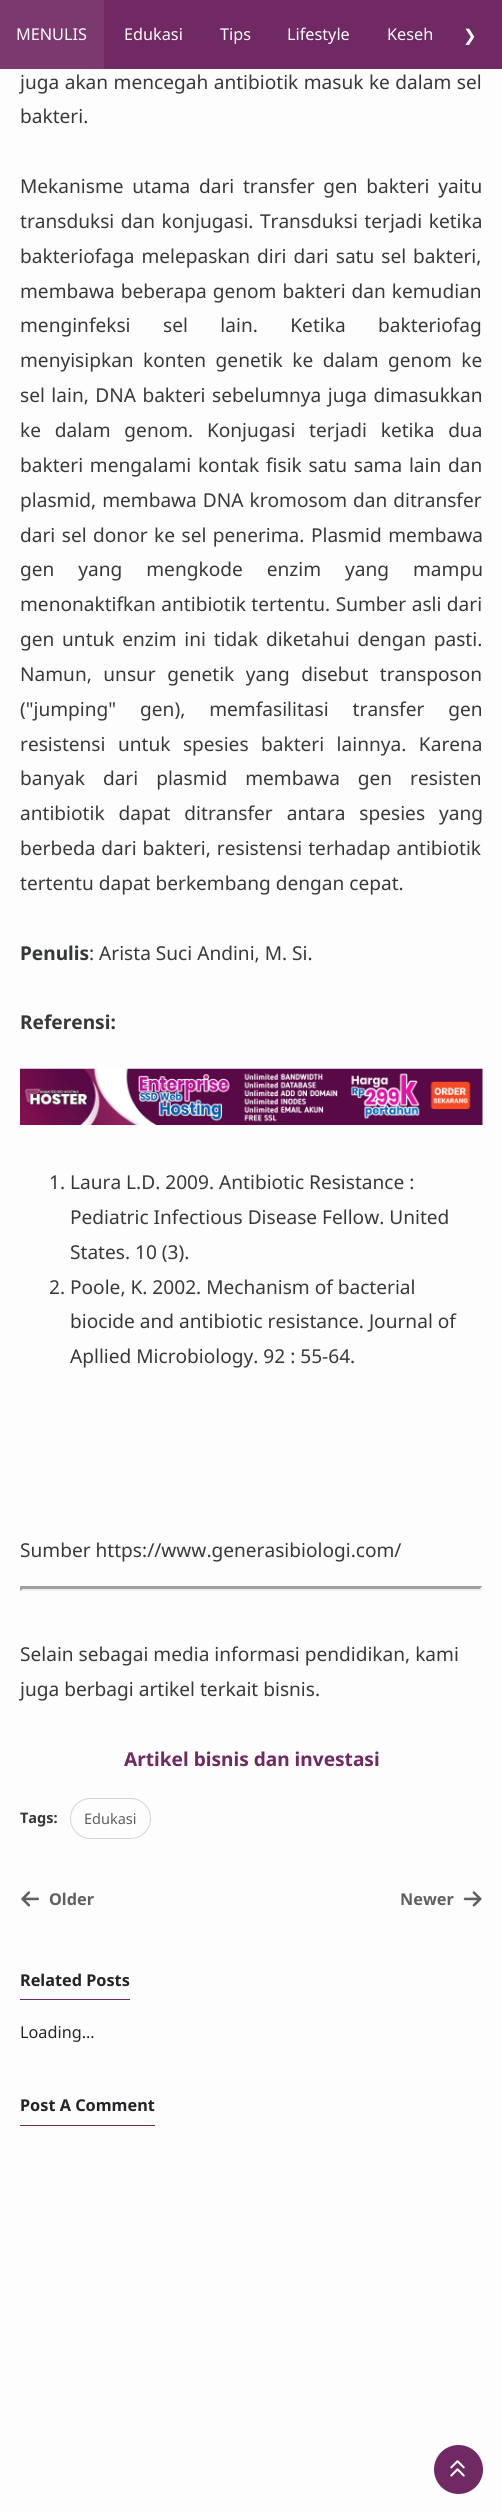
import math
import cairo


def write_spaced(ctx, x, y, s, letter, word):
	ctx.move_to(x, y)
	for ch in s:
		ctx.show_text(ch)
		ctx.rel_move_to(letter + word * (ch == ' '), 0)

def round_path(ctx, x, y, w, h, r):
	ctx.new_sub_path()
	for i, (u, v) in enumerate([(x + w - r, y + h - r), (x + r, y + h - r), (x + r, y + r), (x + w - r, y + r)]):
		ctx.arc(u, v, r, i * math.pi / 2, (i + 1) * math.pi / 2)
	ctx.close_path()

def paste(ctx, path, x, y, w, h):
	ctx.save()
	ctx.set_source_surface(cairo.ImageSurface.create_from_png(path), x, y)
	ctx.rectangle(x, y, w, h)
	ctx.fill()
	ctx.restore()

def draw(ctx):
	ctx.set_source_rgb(0.992, 0.992, 0.992)
	ctx.paint()
	ctx.set_source_rgb(0.439, 0.161, 0.388)
	ctx.rectangle(104, 0, 398, 69)
	ctx.fill()
	ctx.set_source_rgb(0.482, 0.224, 0.435)
	ctx.rectangle(0, 0, 104, 69)
	ctx.fill()
	ctx.select_font_face('Noto Sans')
	ctx.set_font_size(16.25)
	ctx.set_source_rgb(1, 1, 1)
	for x, y, s in [
		(16, 40, 'MENULIS'),
		(124, 40, 'Edukasi'),
		(220, 40, 'Tips'),
		(287, 40, 'Lifestyle'),
		(387, 40, 'Keseh'),
	]:
		ctx.move_to(x, y)
		ctx.show_text(s)
	ctx.select_font_face('DejaVu Sans')
	ctx.move_to(463, 41)
	ctx.show_text('❯')
	ctx.select_font_face('Noto Sans')
	ctx.set_font_size(19.1)
	ctx.set_source_rgb(0.212, 0.22, 0.227)
	write_spaced(ctx, 20, 89, 'juga akan mencegah antibiotik masuk ke dalam sel', 0, 0.5)
	ctx.move_to(20, 123)
	ctx.show_text('bakteri.')
	write_spaced(ctx, 20, 193, 'Mekanisme utama dari transfer gen bakteri yaitu', 0, 3.75)
	write_spaced(ctx, 20, 228, 'transduksi dan konjugasi. Transduksi terjadi ketika', 0, 1.5)
	write_spaced(ctx, 20, 263, 'bakteriofaga melepaskan diri dari satu sel bakteri,', 0, 2)
	write_spaced(ctx, 20, 298, 'membawa beberapa genom bakteri dan kemudian', 0, 1)
	write_spaced(ctx, 20, 332, 'menginfeksi sel lain. Ketika bakteriofag', 0, 27.5)
	write_spaced(ctx, 20, 367, 'menyisipkan konten genetik ke dalam genom ke', 0, 4.5)
	write_spaced(ctx, 20, 402, 'sel lain, DNA bakteri sebelumnya juga dimasukkan', 0, 1.5)
	write_spaced(ctx, 20, 437, 'ke dalam genom. Konjugasi terjadi ketika dua', 0, 8.75)
	write_spaced(ctx, 20, 472, 'bakteri mengalami kontak fisik satu sama lain dan', 0, 1.75)
	write_spaced(ctx, 20, 507, 'plasmid, membawa DNA kromosom dan ditransfer', 0, 1)
	write_spaced(ctx, 20, 542, 'dari sel donor ke sel penerima. Plasmid membawa', 0, 1.5)
	write_spaced(ctx, 20, 576, 'gen yang mengkode enzim yang mampu', 0, 19)
	write_spaced(ctx, 20, 611, 'menonaktifkan antibiotik tertentu. Sumber asli dari', 0, 0.5)
	write_spaced(ctx, 20, 646, 'gen untuk enzim ini tidak diketahui dengan pasti.', 0, 2.75)
	write_spaced(ctx, 20, 681, 'Namun, unsur genetik yang disebut transposon', 0, 6.5)
	write_spaced(ctx, 20, 716, '("jumping" gen), memfasilitasi transfer gen', 0, 19)
	write_spaced(ctx, 20, 751, 'resistensi untuk spesies bakteri lainnya. Karena', 0, 7.5)
	write_spaced(ctx, 20, 785, 'banyak dari plasmid membawa gen resisten', 0, 13)
	write_spaced(ctx, 20, 820, 'antibiotik dapat ditransfer antara spesies yang', 0, 9)
	write_spaced(ctx, 20, 855, 'berbeda dari bakteri, resistensi terhadap antibiotik', 0, 1)
	ctx.move_to(20, 890)
	ctx.show_text('tertentu dapat berkembang dengan cepat.')
	ctx.select_font_face('Noto Sans', cairo.FONT_SLANT_NORMAL, cairo.FONT_WEIGHT_BOLD)
	ctx.move_to(20, 960)
	ctx.show_text('Penulis')
	ctx.select_font_face('Noto Sans')
	ctx.move_to(89, 960)
	ctx.show_text(': Arista Suci Andini, M. Si.')
	ctx.select_font_face('Noto Sans', cairo.FONT_SLANT_NORMAL, cairo.FONT_WEIGHT_BOLD)
	ctx.move_to(20, 1029)
	ctx.show_text('Referensi:')
	paste(ctx, 'media/1.png', 20, 1068, 463, 57)
	ctx.select_font_face('Noto Sans')
	for x, y, s in [
		(49, 1189, '1. Laura L.D. 2009. Antibiotic Resistance :'),
		(70, 1224, 'Pediatric Infectious Disease Fellow. United'),
		(70, 1259, 'States. 10 (3).'),
		(49, 1294, '2. Poole, K. 2002. Mechanism of bacterial'),
		(70, 1328, 'biocide and antibiotic resistance. Journal of'),
		(70, 1363, 'Apllied Microbiology. 92 : 55-64.'),
		(20, 1557, 'Sumber https://www.generasibiologi.com/'),
	]:
		ctx.move_to(x, y)
		ctx.show_text(s)
	ctx.set_source_rgb(0.624, 0.624, 0.624)
	ctx.new_path()
	ctx.move_to(20, 1586)
	ctx.line_to(482, 1586)
	ctx.line_to(480, 1589)
	ctx.line_to(22, 1589)
	ctx.close_path()
	ctx.fill()
	ctx.set_source_rgb(0.933, 0.933, 0.933)
	ctx.new_path()
	ctx.move_to(482.5, 1586)
	ctx.line_to(482.5, 1591)
	ctx.line_to(480, 1589)
	ctx.close_path()
	ctx.fill()
	ctx.new_path()
	ctx.move_to(482, 1591)
	ctx.line_to(20, 1591)
	ctx.line_to(22, 1589)
	ctx.line_to(480, 1589)
	ctx.close_path()
	ctx.fill()
	ctx.set_source_rgb(0.624, 0.624, 0.624)
	ctx.new_path()
	ctx.move_to(20, 1591)
	ctx.line_to(20, 1586)
	ctx.line_to(22.5, 1589)
	ctx.close_path()
	ctx.fill()
	ctx.set_source_rgb(0.212, 0.22, 0.227)
	ctx.move_to(20, 1661)
	ctx.show_text('Selain sebagai media informasi pendidikan, kami')
	ctx.move_to(20, 1696)
	ctx.show_text('juga berbagi artikel terkait bisnis.')
	ctx.select_font_face('Noto Sans', cairo.FONT_SLANT_NORMAL, cairo.FONT_WEIGHT_BOLD)
	ctx.set_source_rgb(0.439, 0.161, 0.388)
	ctx.move_to(124, 1766)
	ctx.show_text('Artikel bisnis dan investasi')
	ctx.set_font_size(14.5)
	ctx.set_source_rgb(0.212, 0.22, 0.227)
	ctx.move_to(20, 1823)
	ctx.show_text('Tags:')
	round_path(ctx, 70.5, 1798.5, 80, 40, 20)
	ctx.set_source_rgb(0.831, 0.831, 0.831)
	ctx.set_line_width(1)
	ctx.stroke()
	ctx.select_font_face('Noto Sans')
	ctx.set_source_rgb(0.376, 0.376, 0.376)
	ctx.move_to(84, 1824)
	ctx.show_text('Edukasi')
	paste(ctx, 'media/2.png', 21, 1891, 18, 16)
	ctx.select_font_face('Noto Sans', cairo.FONT_SLANT_NORMAL, cairo.FONT_WEIGHT_BOLD)
	ctx.set_font_size(16.25)
	ctx.move_to(49, 1905)
	ctx.show_text('Older')
	ctx.move_to(400, 1905)
	ctx.show_text('Newer')
	paste(ctx, 'media/3.png', 463, 1891, 19, 16)
	ctx.set_source_rgb(0.439, 0.161, 0.388)
	ctx.rectangle(20, 1999, 110, 1)
	ctx.fill()
	ctx.set_source_rgb(0.137, 0.141, 0.157)
	ctx.move_to(20, 1986)
	ctx.show_text('Related Posts')
	ctx.select_font_face('Noto Sans')
	ctx.move_to(20, 2038)
	ctx.show_text('Loading…')
	ctx.set_source_rgb(0.439, 0.161, 0.388)
	ctx.rectangle(20, 2125, 135, 1)
	ctx.fill()
	ctx.select_font_face('Noto Sans', cairo.FONT_SLANT_NORMAL, cairo.FONT_WEIGHT_BOLD)
	ctx.set_source_rgb(0.137, 0.141, 0.157)
	ctx.move_to(20, 2111)
	ctx.show_text('Post A Comment')
	ctx.set_source_rgb(0.439, 0.161, 0.388)
	ctx.new_path()
	ctx.arc(458.5, 2469.5, 24.5, 0, 2 * math.pi)
	ctx.fill()
	paste(ctx, 'media/4.png', 450, 2460, 15, 17)


surface = cairo.ImageSurface(cairo.FORMAT_RGB24, 502, 2513)
ctx = cairo.Context(surface)
options = cairo.FontOptions()
options.set_hint_metrics(cairo.HINT_METRICS_OFF)
options.set_hint_style(cairo.HINT_STYLE_NONE)
ctx.set_font_options(options)
ctx.set_miter_limit(4)
draw(ctx)
surface.write_to_png('image.png')
